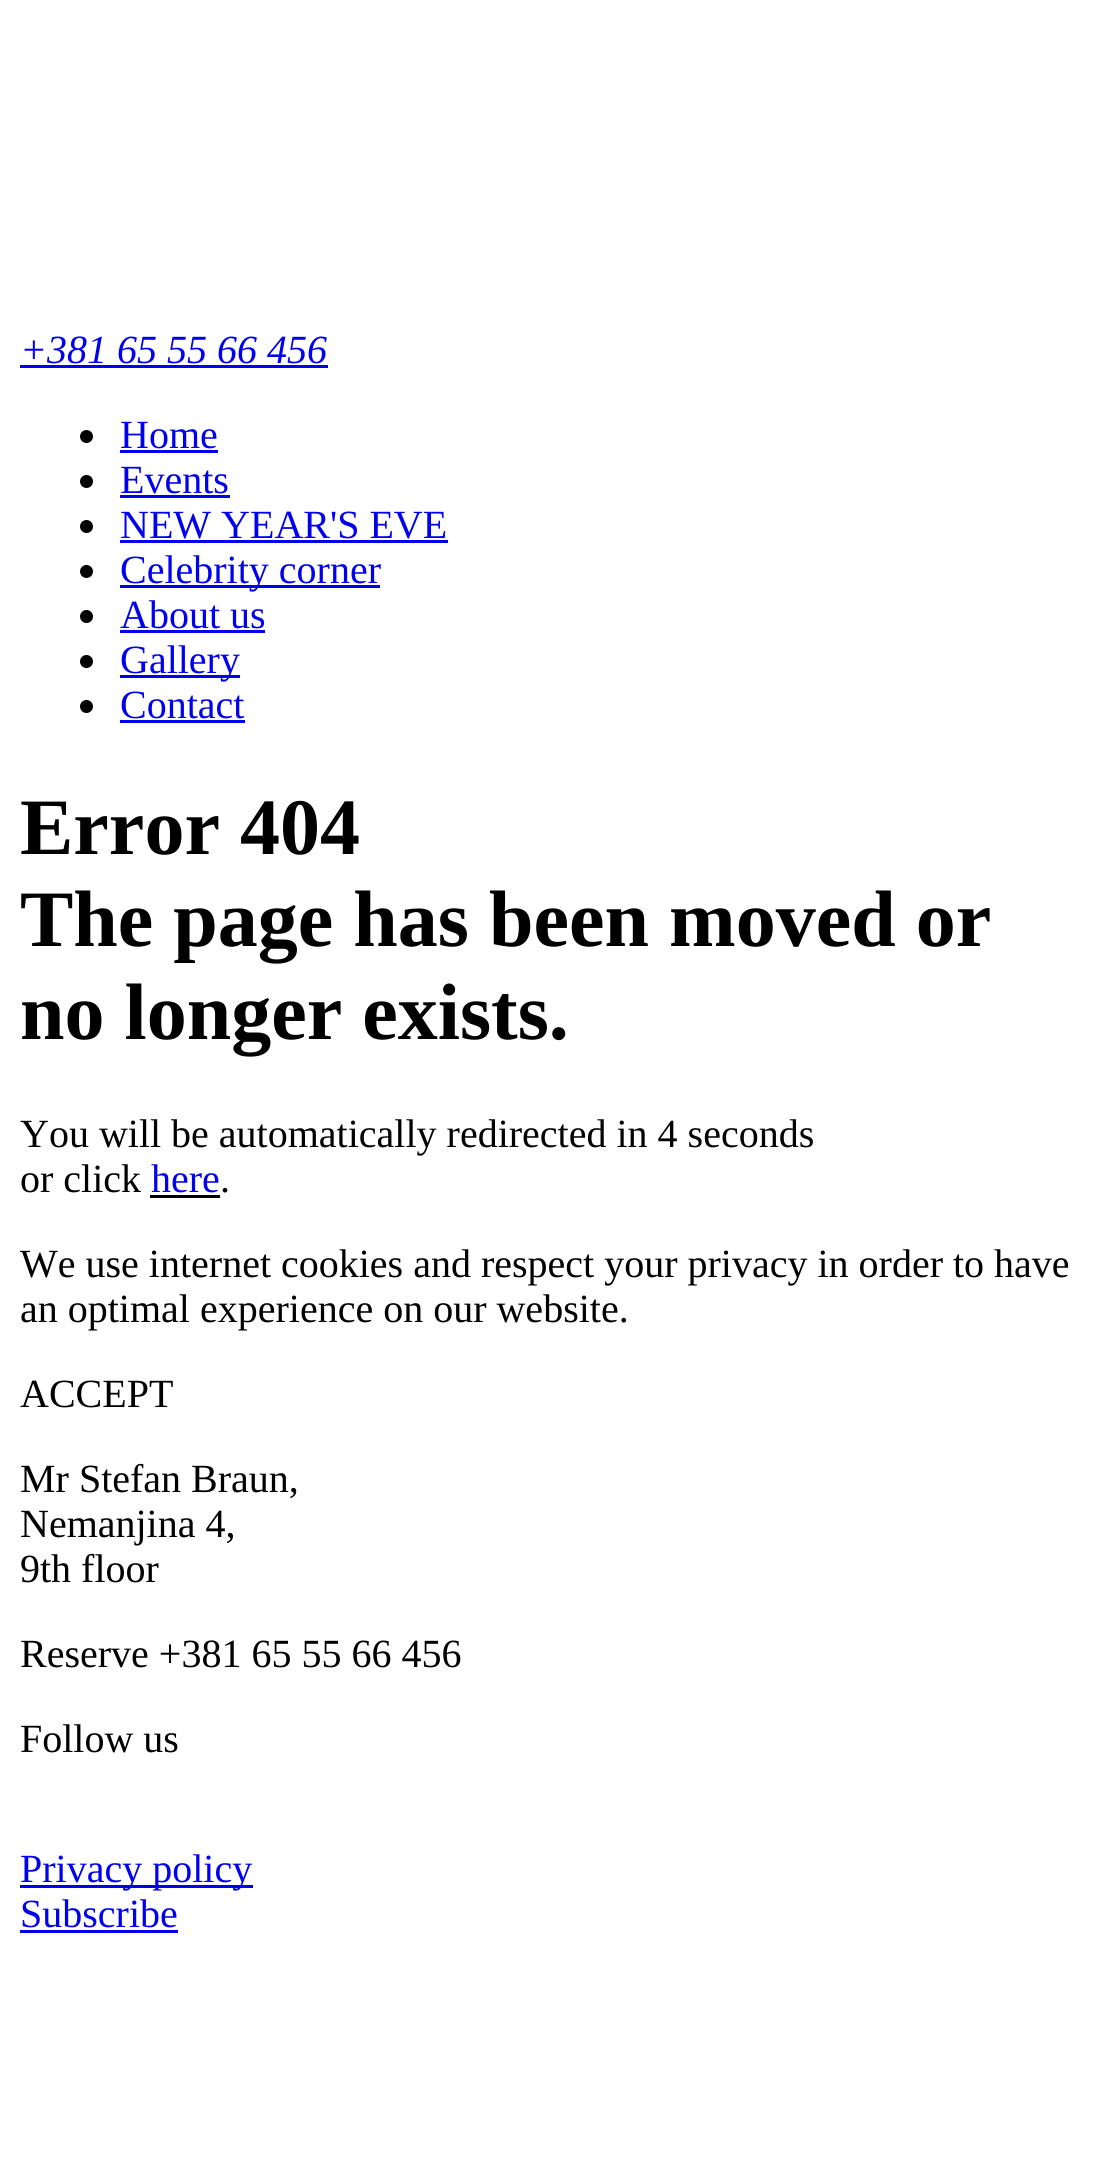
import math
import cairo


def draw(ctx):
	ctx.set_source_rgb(1, 1, 1)
	ctx.paint()
	ctx.select_font_face('Liberation Serif', cairo.FONT_SLANT_ITALIC)
	ctx.set_font_size(40)
	ctx.set_source_rgb(0, 0, 0.933)
	ctx.move_to(20, 363)
	ctx.show_text('+381 65 55 66 456')
	ctx.rectangle(20, 365, 308, 3)
	ctx.fill()
	ctx.set_source_rgb(0, 0, 0)
	ctx.arc(86.5, 436.5, 6.5, 0, 2 * math.pi)
	ctx.fill()
	ctx.select_font_face('Liberation Serif')
	ctx.set_source_rgb(0, 0, 0.933)
	ctx.move_to(120, 448)
	ctx.show_text('Home')
	ctx.rectangle(120, 450, 98, 3)
	ctx.fill()
	ctx.set_source_rgb(0, 0, 0)
	ctx.arc(86.5, 481.5, 6.5, 0, 2 * math.pi)
	ctx.fill()
	ctx.set_source_rgb(0, 0, 0.933)
	ctx.move_to(120, 493)
	ctx.show_text('Events')
	ctx.rectangle(120, 495, 110, 3)
	ctx.fill()
	ctx.set_source_rgb(0, 0, 0)
	ctx.arc(86.5, 526.5, 6.5, 0, 2 * math.pi)
	ctx.fill()
	ctx.set_source_rgb(0, 0, 0.933)
	ctx.move_to(120, 538)
	ctx.show_text('NEW YEAR\'S EVE')
	ctx.rectangle(120, 540, 328, 3)
	ctx.fill()
	ctx.set_source_rgb(0, 0, 0)
	ctx.arc(86.5, 571.5, 6.5, 0, 2 * math.pi)
	ctx.fill()
	ctx.set_source_rgb(0, 0, 0.933)
	ctx.rectangle(120, 585, 260, 3)
	ctx.fill()
	ctx.move_to(120, 583)
	ctx.show_text('Celebrity corner')
	ctx.set_source_rgb(0, 0, 0)
	ctx.new_path()
	ctx.arc(86.5, 616.5, 6.5, 0, 2 * math.pi)
	ctx.fill()
	ctx.set_source_rgb(0, 0, 0.933)
	ctx.move_to(120, 628)
	ctx.show_text('About us')
	ctx.rectangle(120, 630, 145, 3)
	ctx.fill()
	ctx.set_source_rgb(0, 0, 0)
	ctx.arc(86.5, 661.5, 6.5, 0, 2 * math.pi)
	ctx.fill()
	ctx.set_source_rgb(0, 0, 0.933)
	ctx.rectangle(120, 675, 120, 3)
	ctx.fill()
	ctx.move_to(120, 673)
	ctx.show_text('Gallery')
	ctx.set_source_rgb(0, 0, 0)
	ctx.new_path()
	ctx.arc(86.5, 706.5, 6.5, 0, 2 * math.pi)
	ctx.fill()
	ctx.set_source_rgb(0, 0, 0.933)
	ctx.move_to(120, 718)
	ctx.show_text('Contact')
	ctx.rectangle(120, 720, 125, 3)
	ctx.fill()
	ctx.select_font_face('Liberation Serif', cairo.FONT_SLANT_NORMAL, cairo.FONT_WEIGHT_BOLD)
	ctx.set_font_size(80)
	ctx.set_source_rgb(0, 0, 0)
	for x, y, s in [
		(20, 854, 'Error 404'),
		(20, 946, 'The page has been moved or'),
		(20, 1039, 'no longer exists.'),
	]:
		ctx.move_to(x, y)
		ctx.show_text(s)
	ctx.select_font_face('Liberation Serif')
	ctx.set_font_size(40)
	ctx.move_to(20, 1147)
	ctx.show_text('You will be automatically redirected in 4 seconds')
	ctx.move_to(20, 1192)
	ctx.show_text('or click')
	ctx.set_source_rgb(0, 0, 0.933)
	ctx.move_to(151, 1192)
	ctx.show_text('here')
	ctx.set_source_rgb(0, 0, 0)
	ctx.rectangle(150, 1195, 70, 3)
	ctx.fill()
	for x, y, s in [
		(220, 1192, '.'),
		(20, 1277, 'We use internet cookies and respect your privacy in order to have'),
		(20, 1322, 'an optimal experience on our website.'),
		(20, 1407, 'ACCEPT'),
		(20, 1492, 'Mr Stefan Braun,'),
		(20, 1537, 'Nemanjina 4,'),
		(20, 1582, '9th floor'),
		(20, 1667, 'Reserve +381 65 55 66 456'),
		(20, 1752, 'Follow us'),
	]:
		ctx.move_to(x, y)
		ctx.show_text(s)
	ctx.set_source_rgb(0, 0, 0.933)
	ctx.rectangle(20, 1885, 233, 3)
	ctx.fill()
	ctx.move_to(20, 1882)
	ctx.show_text('Privacy policy')
	ctx.move_to(20, 1927)
	ctx.show_text('Subscribe')
	ctx.rectangle(20, 1930, 158, 3)
	ctx.fill()


surface = cairo.ImageSurface(cairo.FORMAT_RGB24, 1100, 2184)
ctx = cairo.Context(surface)
options = cairo.FontOptions()
options.set_hint_metrics(cairo.HINT_METRICS_OFF)
options.set_hint_style(cairo.HINT_STYLE_NONE)
ctx.set_font_options(options)
ctx.set_miter_limit(4)
draw(ctx)
surface.write_to_png('image.png')
